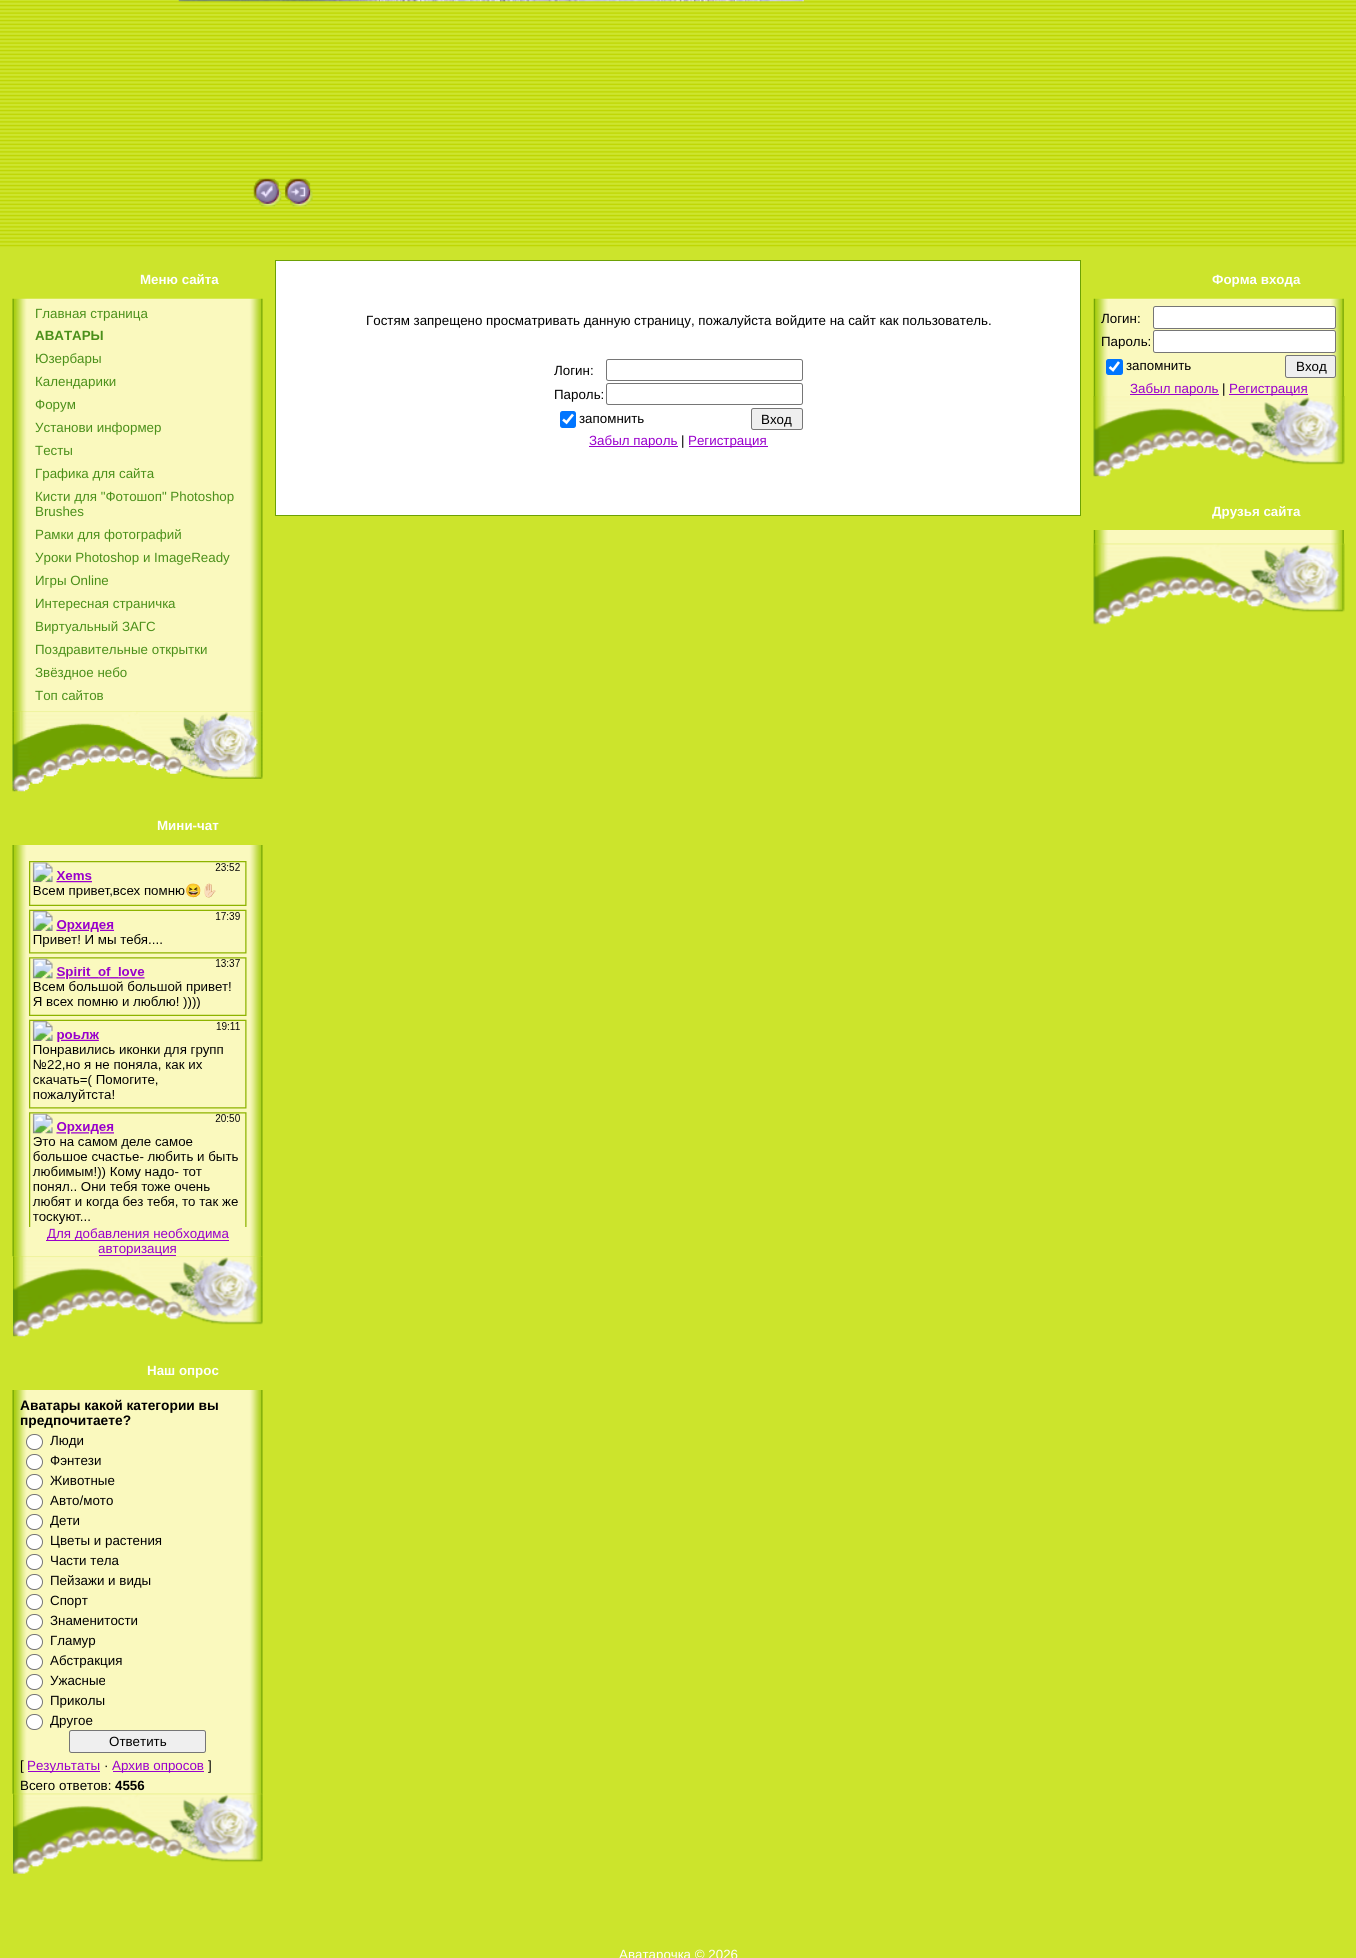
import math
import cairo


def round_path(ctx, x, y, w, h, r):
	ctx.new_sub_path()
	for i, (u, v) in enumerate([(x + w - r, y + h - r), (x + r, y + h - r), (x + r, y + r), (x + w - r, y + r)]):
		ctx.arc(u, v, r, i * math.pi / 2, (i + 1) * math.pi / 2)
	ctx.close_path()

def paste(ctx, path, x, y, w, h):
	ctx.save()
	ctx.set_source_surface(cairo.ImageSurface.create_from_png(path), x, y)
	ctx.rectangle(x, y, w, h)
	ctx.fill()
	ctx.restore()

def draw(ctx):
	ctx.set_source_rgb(0.8, 0.894, 0.173)
	ctx.paint()
	paste(ctx, 'media/1.png', 0, 1, 1356, 246)
	paste(ctx, 'media/2.png', 178, 0, 626, 2)
	paste(ctx, 'media/3.png', 253, 178, 29, 29)
	paste(ctx, 'media/4.png', 285, 178, 28, 29)
	ctx.select_font_face('Liberation Sans', cairo.FONT_SLANT_NORMAL, cairo.FONT_WEIGHT_BOLD)
	ctx.set_font_size(13.35)
	ctx.set_source_rgb(1, 1, 1)
	ctx.move_to(140, 284)
	ctx.show_text('Меню сайта')
	paste(ctx, 'media/5.png', 12, 298, 251, 414)
	ctx.select_font_face('Liberation Sans')
	ctx.set_source_rgb(0.294, 0.565, 0.102)
	ctx.move_to(35, 318)
	ctx.show_text('Главная страница')
	ctx.select_font_face('Liberation Sans', cairo.FONT_SLANT_NORMAL, cairo.FONT_WEIGHT_BOLD)
	ctx.move_to(35, 340)
	ctx.show_text('АВАТАРЫ')
	ctx.select_font_face('Liberation Sans')
	for x, y, s in [
		(35, 363, 'Юзербары'),
		(35, 386, 'Календарики'),
		(35, 409, 'Форум'),
		(35, 432, 'Установи информер'),
		(35, 455, 'Тесты'),
		(35, 478, 'Графика для сайта'),
		(35, 501, 'Кисти для "Фотошоп" Photoshop'),
		(35, 516, 'Brushes'),
		(35, 539, 'Рамки для фотографий'),
		(35, 562, 'Уроки Photoshop и ImageReady'),
		(35, 585, 'Игры Online'),
		(35, 608, 'Интересная страничка'),
		(35, 631, 'Виртуальный ЗАГС'),
		(35, 654, 'Поздравительные открытки'),
		(35, 677, 'Звёздное небо'),
		(35, 700, 'Топ сайтов'),
	]:
		ctx.move_to(x, y)
		ctx.show_text(s)
	paste(ctx, 'media/6.png', 12, 711, 251, 81)
	ctx.select_font_face('Liberation Sans', cairo.FONT_SLANT_NORMAL, cairo.FONT_WEIGHT_BOLD)
	ctx.set_source_rgb(1, 1, 1)
	ctx.move_to(157, 830)
	ctx.show_text('Мини-чат')
	paste(ctx, 'media/7.png', 12, 845, 251, 412)
	paste(ctx, 'media/8.png', 29, 861, 218, 366)
	ctx.set_source_rgb(0.6, 0, 0.8)
	ctx.rectangle(46, 1240, 183, 1)
	ctx.fill()
	ctx.select_font_face('Liberation Sans')
	ctx.move_to(47, 1238)
	ctx.show_text('Для добавления необходима')
	ctx.rectangle(99, 1255, 77, 1)
	ctx.fill()
	ctx.move_to(98, 1253)
	ctx.show_text('авторизация')
	paste(ctx, 'media/9.png', 13, 1256, 250, 81)
	ctx.select_font_face('Liberation Sans', cairo.FONT_SLANT_NORMAL, cairo.FONT_WEIGHT_BOLD)
	ctx.set_source_rgb(1, 1, 1)
	ctx.move_to(147, 1375)
	ctx.show_text('Наш опрос')
	paste(ctx, 'media/10.png', 12, 1390, 251, 404)
	ctx.set_font_size(13.75)
	ctx.set_source_rgb(0, 0, 0)
	ctx.move_to(20, 1410)
	ctx.show_text('Аватары какой категории вы')
	ctx.move_to(20, 1425)
	ctx.show_text('предпочитаете?')
	ctx.set_source_rgb(1, 1, 1)
	round_path(ctx, 26.5, 1434.5, 16, 15, 7.5)
	ctx.fill_preserve()
	ctx.set_source_rgb(0.463, 0.463, 0.463)
	ctx.set_line_width(1)
	ctx.stroke()
	ctx.select_font_face('Liberation Sans')
	ctx.set_font_size(13.35)
	ctx.set_source_rgb(0, 0, 0)
	ctx.move_to(50, 1445)
	ctx.show_text('Люди')
	ctx.set_source_rgb(1, 1, 1)
	round_path(ctx, 26.5, 1454.5, 16, 15, 7.5)
	ctx.fill_preserve()
	ctx.set_source_rgb(0.463, 0.463, 0.463)
	ctx.stroke()
	ctx.set_source_rgb(0, 0, 0)
	ctx.move_to(50, 1465)
	ctx.show_text('Фэнтези')
	ctx.set_source_rgb(1, 1, 1)
	round_path(ctx, 26.5, 1474.5, 16, 15, 7.5)
	ctx.fill_preserve()
	ctx.set_source_rgb(0.463, 0.463, 0.463)
	ctx.stroke()
	ctx.set_source_rgb(0, 0, 0)
	ctx.move_to(50, 1485)
	ctx.show_text('Животные')
	ctx.set_source_rgb(1, 1, 1)
	round_path(ctx, 26.5, 1494.5, 16, 15, 7.5)
	ctx.fill_preserve()
	ctx.set_source_rgb(0.463, 0.463, 0.463)
	ctx.stroke()
	ctx.set_source_rgb(0, 0, 0)
	ctx.move_to(50, 1505)
	ctx.show_text('Авто/мото')
	ctx.set_source_rgb(1, 1, 1)
	round_path(ctx, 26.5, 1514.5, 16, 15, 7.5)
	ctx.fill_preserve()
	ctx.set_source_rgb(0.463, 0.463, 0.463)
	ctx.stroke()
	ctx.set_source_rgb(0, 0, 0)
	ctx.move_to(50, 1525)
	ctx.show_text('Дети')
	ctx.set_source_rgb(1, 1, 1)
	round_path(ctx, 26.5, 1534.5, 16, 15, 7.5)
	ctx.fill_preserve()
	ctx.set_source_rgb(0.463, 0.463, 0.463)
	ctx.stroke()
	ctx.set_source_rgb(0, 0, 0)
	ctx.move_to(50, 1545)
	ctx.show_text('Цветы и растения')
	ctx.set_source_rgb(1, 1, 1)
	round_path(ctx, 26.5, 1554.5, 16, 15, 7.5)
	ctx.fill_preserve()
	ctx.set_source_rgb(0.463, 0.463, 0.463)
	ctx.stroke()
	ctx.set_source_rgb(0, 0, 0)
	ctx.move_to(50, 1565)
	ctx.show_text('Части тела')
	ctx.set_source_rgb(1, 1, 1)
	round_path(ctx, 26.5, 1574.5, 16, 15, 7.5)
	ctx.fill_preserve()
	ctx.set_source_rgb(0.463, 0.463, 0.463)
	ctx.stroke()
	ctx.set_source_rgb(0, 0, 0)
	ctx.move_to(50, 1585)
	ctx.show_text('Пейзажи и виды')
	ctx.set_source_rgb(1, 1, 1)
	round_path(ctx, 26.5, 1594.5, 16, 15, 7.5)
	ctx.fill_preserve()
	ctx.set_source_rgb(0.463, 0.463, 0.463)
	ctx.stroke()
	ctx.set_source_rgb(0, 0, 0)
	ctx.move_to(50, 1605)
	ctx.show_text('Спорт')
	ctx.set_source_rgb(1, 1, 1)
	round_path(ctx, 26.5, 1614.5, 16, 15, 7.5)
	ctx.fill_preserve()
	ctx.set_source_rgb(0.463, 0.463, 0.463)
	ctx.stroke()
	ctx.set_source_rgb(0, 0, 0)
	ctx.move_to(50, 1625)
	ctx.show_text('Знаменитости')
	ctx.set_source_rgb(1, 1, 1)
	round_path(ctx, 26.5, 1634.5, 16, 15, 7.5)
	ctx.fill_preserve()
	ctx.set_source_rgb(0.463, 0.463, 0.463)
	ctx.stroke()
	ctx.set_source_rgb(0, 0, 0)
	ctx.move_to(50, 1645)
	ctx.show_text('Гламур')
	ctx.set_source_rgb(1, 1, 1)
	round_path(ctx, 26.5, 1654.5, 16, 15, 7.5)
	ctx.fill_preserve()
	ctx.set_source_rgb(0.463, 0.463, 0.463)
	ctx.stroke()
	ctx.set_source_rgb(0, 0, 0)
	ctx.move_to(50, 1665)
	ctx.show_text('Абстракция')
	ctx.set_source_rgb(1, 1, 1)
	round_path(ctx, 26.5, 1674.5, 16, 15, 7.5)
	ctx.fill_preserve()
	ctx.set_source_rgb(0.463, 0.463, 0.463)
	ctx.stroke()
	ctx.set_source_rgb(0, 0, 0)
	ctx.move_to(50, 1685)
	ctx.show_text('Ужасные')
	ctx.set_source_rgb(1, 1, 1)
	round_path(ctx, 26.5, 1694.5, 16, 15, 7.5)
	ctx.fill_preserve()
	ctx.set_source_rgb(0.463, 0.463, 0.463)
	ctx.stroke()
	ctx.set_source_rgb(0, 0, 0)
	ctx.move_to(50, 1705)
	ctx.show_text('Приколы')
	ctx.set_source_rgb(1, 1, 1)
	round_path(ctx, 26.5, 1714.5, 16, 15, 7.5)
	ctx.fill_preserve()
	ctx.set_source_rgb(0.463, 0.463, 0.463)
	ctx.stroke()
	ctx.set_source_rgb(0, 0, 0)
	ctx.move_to(50, 1725)
	ctx.show_text('Другое')
	ctx.set_source_rgb(0.937, 0.937, 0.937)
	round_path(ctx, 69.5, 1730.5, 136, 22, 2)
	ctx.fill_preserve()
	ctx.set_source_rgb(0.463, 0.463, 0.463)
	ctx.stroke()
	ctx.set_source_rgb(0, 0, 0)
	ctx.move_to(109, 1746)
	ctx.show_text('Ответить')
	ctx.move_to(20, 1770)
	ctx.show_text('[')
	ctx.set_source_rgb(0.6, 0, 0.8)
	ctx.rectangle(28, 1771, 72, 1)
	ctx.fill()
	ctx.move_to(27, 1770)
	ctx.show_text('Результаты')
	ctx.set_source_rgb(0, 0, 0)
	ctx.move_to(104, 1770)
	ctx.show_text('·')
	ctx.set_source_rgb(0.6, 0, 0.8)
	ctx.rectangle(113, 1771, 91, 1)
	ctx.fill()
	ctx.move_to(112, 1770)
	ctx.show_text('Архив опросов')
	ctx.set_source_rgb(0, 0, 0)
	ctx.move_to(208, 1770)
	ctx.show_text(']')
	ctx.move_to(20, 1790)
	ctx.show_text('Всего ответов:')
	ctx.select_font_face('Liberation Sans', cairo.FONT_SLANT_NORMAL, cairo.FONT_WEIGHT_BOLD)
	ctx.move_to(115, 1790)
	ctx.show_text('4556')
	paste(ctx, 'media/11.png', 13, 1793, 250, 81)
	ctx.rectangle(275.5, 260.5, 805, 255)
	ctx.set_source_rgb(0.427, 0.631, 0.016)
	ctx.stroke()
	ctx.set_source_rgb(1, 1, 1)
	ctx.rectangle(276, 261, 804, 254)
	ctx.fill()
	ctx.select_font_face('Liberation Sans')
	ctx.set_source_rgb(0, 0, 0)
	ctx.move_to(366, 325)
	ctx.show_text('Гостям запрещено просматривать данную страницу, пожалуйста войдите на сайт как пользователь.')
	ctx.move_to(554, 375)
	ctx.show_text('Логин:')
	round_path(ctx, 606.5, 359.5, 196, 21, 2)
	ctx.set_source_rgb(0.463, 0.463, 0.463)
	ctx.stroke()
	ctx.set_source_rgb(0, 0, 0)
	ctx.move_to(554, 399)
	ctx.show_text('Пароль:')
	round_path(ctx, 606.5, 383.5, 196, 21, 2)
	ctx.set_source_rgb(0.463, 0.463, 0.463)
	ctx.stroke()
	ctx.set_source_rgb(0, 0.459, 1)
	round_path(ctx, 560, 411, 16, 17, 2.5)
	ctx.fill()
	ctx.new_path()
	ctx.move_to(563, 419.5)
	ctx.line_to(566.5, 422.5)
	ctx.line_to(573, 414.5)
	ctx.set_source_rgb(1, 1, 1)
	ctx.set_line_width(2.6)
	ctx.stroke()
	ctx.set_source_rgb(0, 0, 0)
	ctx.move_to(579, 423)
	ctx.show_text('запомнить')
	ctx.set_source_rgb(0.937, 0.937, 0.937)
	round_path(ctx, 751.5, 408.5, 51, 21, 2)
	ctx.fill_preserve()
	ctx.set_source_rgb(0.463, 0.463, 0.463)
	ctx.set_line_width(1)
	ctx.stroke()
	ctx.set_source_rgb(0, 0, 0)
	ctx.move_to(761, 424)
	ctx.show_text('Вход')
	ctx.set_source_rgb(0.6, 0, 0.8)
	ctx.rectangle(589, 446, 89, 1)
	ctx.fill()
	ctx.move_to(589, 445)
	ctx.show_text('Забыл пароль')
	ctx.set_source_rgb(0, 0, 0)
	ctx.move_to(681, 445)
	ctx.show_text('|')
	ctx.set_source_rgb(0.6, 0, 0.8)
	ctx.rectangle(689, 446, 79, 1)
	ctx.fill()
	ctx.move_to(688, 445)
	ctx.show_text('Регистрация')
	ctx.select_font_face('Liberation Sans', cairo.FONT_SLANT_NORMAL, cairo.FONT_WEIGHT_BOLD)
	ctx.set_source_rgb(1, 1, 1)
	ctx.move_to(1212, 284)
	ctx.show_text('Форма входа')
	paste(ctx, 'media/12.png', 1093, 298, 251, 99)
	ctx.select_font_face('Liberation Sans')
	ctx.set_source_rgb(0, 0, 0)
	ctx.move_to(1101, 323)
	ctx.show_text('Логин:')
	ctx.set_source_rgb(1, 1, 1)
	round_path(ctx, 1153.5, 306.5, 182, 22, 2)
	ctx.fill_preserve()
	ctx.set_source_rgb(0.463, 0.463, 0.463)
	ctx.stroke()
	ctx.set_source_rgb(0, 0, 0)
	ctx.move_to(1101, 346)
	ctx.show_text('Пароль:')
	ctx.set_source_rgb(1, 1, 1)
	round_path(ctx, 1153.5, 330.5, 182, 22, 2)
	ctx.fill_preserve()
	ctx.set_source_rgb(0.463, 0.463, 0.463)
	ctx.stroke()
	ctx.set_source_rgb(0, 0.459, 1)
	round_path(ctx, 1106, 359, 17, 16, 2.5)
	ctx.fill()
	ctx.new_path()
	ctx.move_to(1109.5, 367)
	ctx.line_to(1113, 370)
	ctx.line_to(1119, 362)
	ctx.set_source_rgb(1, 1, 1)
	ctx.set_line_width(2.6)
	ctx.stroke()
	ctx.set_source_rgb(0, 0, 0)
	ctx.move_to(1126, 370)
	ctx.show_text('запомнить')
	ctx.set_source_rgb(0.937, 0.937, 0.937)
	round_path(ctx, 1285.5, 355.5, 50, 22, 2)
	ctx.fill_preserve()
	ctx.set_source_rgb(0.463, 0.463, 0.463)
	ctx.set_line_width(1)
	ctx.stroke()
	ctx.set_source_rgb(0, 0, 0)
	ctx.move_to(1296, 371)
	ctx.show_text('Вход')
	ctx.set_source_rgb(0.6, 0, 0.8)
	ctx.rectangle(1130, 394, 89, 1)
	ctx.fill()
	ctx.move_to(1130, 393)
	ctx.show_text('Забыл пароль')
	ctx.set_source_rgb(0, 0, 0)
	ctx.move_to(1222, 393)
	ctx.show_text('|')
	ctx.set_source_rgb(0.6, 0, 0.8)
	ctx.rectangle(1229, 394, 79, 1)
	ctx.fill()
	ctx.move_to(1229, 393)
	ctx.show_text('Регистрация')
	paste(ctx, 'media/13.png', 1093, 396, 252, 81)
	ctx.select_font_face('Liberation Sans', cairo.FONT_SLANT_NORMAL, cairo.FONT_WEIGHT_BOLD)
	ctx.set_source_rgb(1, 1, 1)
	ctx.move_to(1212, 516)
	ctx.show_text('Друзья сайта')
	paste(ctx, 'media/14.png', 1093, 530, 251, 14)
	paste(ctx, 'media/15.png', 1093, 543, 252, 82)
	ctx.select_font_face('Liberation Sans')
	ctx.move_to(619, 1959)
	ctx.show_text('Аватарочка © 2026')


surface = cairo.ImageSurface(cairo.FORMAT_RGB24, 1356, 1958)
ctx = cairo.Context(surface)
options = cairo.FontOptions()
options.set_hint_metrics(cairo.HINT_METRICS_OFF)
options.set_hint_style(cairo.HINT_STYLE_NONE)
ctx.set_font_options(options)
ctx.set_miter_limit(4)
draw(ctx)
surface.write_to_png('image.png')
